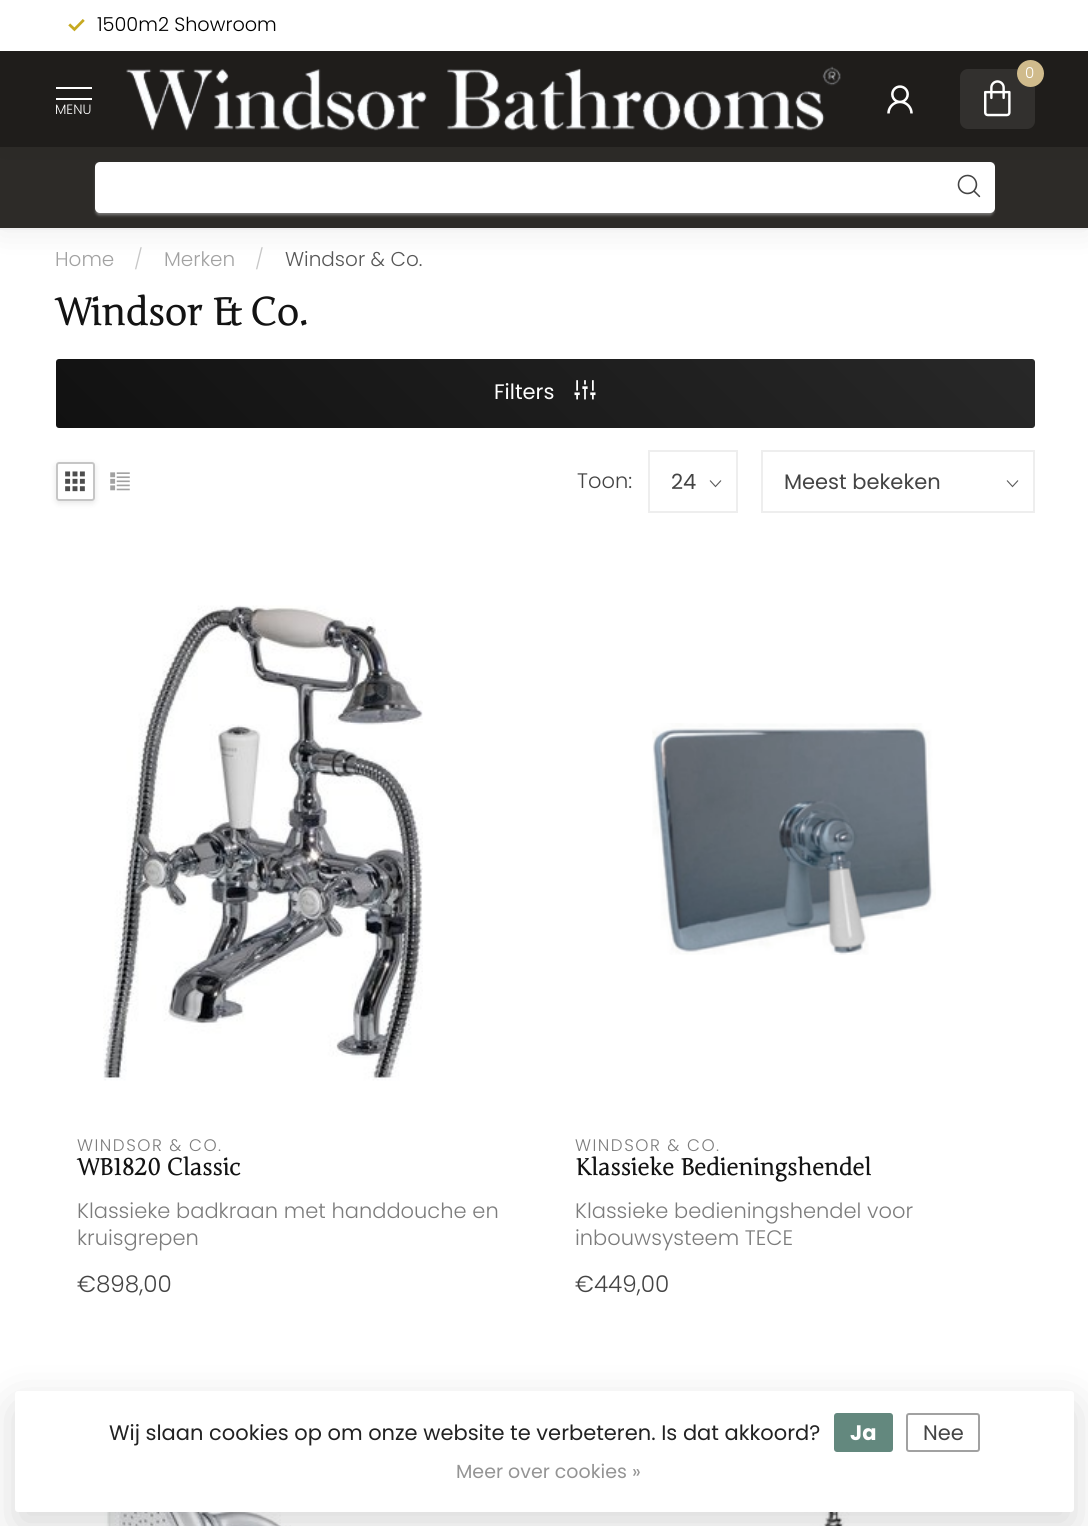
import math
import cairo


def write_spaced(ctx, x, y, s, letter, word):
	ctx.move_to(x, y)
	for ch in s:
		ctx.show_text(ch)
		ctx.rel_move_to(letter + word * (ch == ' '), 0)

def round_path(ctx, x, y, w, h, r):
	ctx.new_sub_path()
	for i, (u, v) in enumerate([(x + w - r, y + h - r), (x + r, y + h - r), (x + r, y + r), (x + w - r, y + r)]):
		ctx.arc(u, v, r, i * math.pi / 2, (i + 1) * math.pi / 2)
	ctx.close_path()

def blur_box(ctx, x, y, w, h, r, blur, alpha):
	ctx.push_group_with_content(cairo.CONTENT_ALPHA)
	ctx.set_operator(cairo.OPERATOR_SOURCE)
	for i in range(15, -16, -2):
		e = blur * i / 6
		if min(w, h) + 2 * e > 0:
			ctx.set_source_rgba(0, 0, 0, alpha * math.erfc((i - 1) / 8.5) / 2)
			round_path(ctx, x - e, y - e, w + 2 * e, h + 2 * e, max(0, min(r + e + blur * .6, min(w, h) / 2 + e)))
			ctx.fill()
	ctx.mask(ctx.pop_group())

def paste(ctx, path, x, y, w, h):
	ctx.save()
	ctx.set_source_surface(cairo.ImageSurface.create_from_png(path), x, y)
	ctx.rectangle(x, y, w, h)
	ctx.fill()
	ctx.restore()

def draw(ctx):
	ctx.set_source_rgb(1, 1, 1)
	ctx.paint()
	ctx.set_source_rgb(0, 0, 0)
	blur_box(ctx, 0, 147, 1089, 83, 0, 16.5, 0.08)
	ctx.set_source_rgb(0.176, 0.169, 0.157)
	ctx.rectangle(0, 147, 1088, 81)
	ctx.fill()
	ctx.set_source_rgb(0.608, 0.608, 0.608)
	blur_box(ctx, 96, 167, 897, 48, 3, 1.5, 0.75)
	ctx.set_source_rgb(1, 1, 1)
	round_path(ctx, 95, 162, 900, 51, 5)
	ctx.fill()
	ctx.set_source_rgba(1, 1, 1, 0.05)
	ctx.rectangle(95, 162, 900, 51)
	ctx.fill()
	paste(ctx, 'media/5.png', 957, 174, 24, 24)
	ctx.set_source_rgb(0, 0, 0)
	blur_box(ctx, 0, 0, 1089, 147, 0, 15, 0.07)
	ctx.set_source_rgb(0.122, 0.114, 0.106)
	ctx.rectangle(0, 51, 1088, 96)
	ctx.fill()
	ctx.set_source_rgb(1, 1, 1)
	ctx.rectangle(0, 0, 1088, 51)
	ctx.fill()
	paste(ctx, 'media/1.png', 68, 19, 17, 13)
	ctx.select_font_face('Poppins Light')
	ctx.set_font_size(19.25)
	ctx.set_source_rgb(0, 0, 0)
	ctx.move_to(97, 31)
	ctx.show_text('1500m2 Showroom')
	paste(ctx, 'media/2.png', 126, 66, 715, 65)
	ctx.set_source_rgb(0.196, 0.188, 0.18)
	round_path(ctx, 960, 69, 75, 60, 8)
	ctx.fill()
	ctx.set_source_rgb(0.816, 0.733, 0.549)
	ctx.arc(1030.5, 73.5, 13.5, 0, 2 * math.pi)
	ctx.fill()
	ctx.set_font_size(15)
	ctx.set_source_rgb(1, 1, 1)
	ctx.move_to(1025, 78)
	ctx.show_text('0')
	paste(ctx, 'media/3.png', 984, 80, 27, 37)
	paste(ctx, 'media/4.png', 887, 85, 26, 29)
	ctx.rectangle(56, 87, 36, 2)
	ctx.fill()
	ctx.rectangle(56, 98, 36, 2)
	ctx.fill()
	ctx.set_font_size(13.5)
	ctx.move_to(55, 114)
	ctx.show_text('MENU')
	ctx.set_source_rgb(0.933, 0.933, 0.933)
	ctx.rectangle(0, 228, 1088, 2)
	ctx.fill()
	ctx.set_font_size(20)
	ctx.set_source_rgb(0.635, 0.635, 0.635)
	ctx.move_to(55, 266)
	ctx.show_text('Home')
	ctx.set_source_rgb(0.78, 0.78, 0.78)
	ctx.move_to(134, 266)
	ctx.show_text('/')
	ctx.set_source_rgb(0.635, 0.635, 0.635)
	ctx.move_to(164, 266)
	ctx.show_text('Merken')
	ctx.set_source_rgb(0.78, 0.78, 0.78)
	ctx.move_to(255, 266)
	ctx.show_text('/')
	ctx.set_source_rgb(0.341, 0.341, 0.341)
	ctx.move_to(285, 266)
	ctx.show_text('Windsor & Co.')
	ctx.select_font_face('Junge', cairo.FONT_SLANT_NORMAL, cairo.FONT_WEIGHT_BOLD)
	ctx.set_font_size(37.75)
	ctx.set_source_rgb(0.075, 0.075, 0.075)
	ctx.move_to(55, 325)
	ctx.show_text('Windsor & Co.')
	gradient = cairo.LinearGradient(283, 655, 807, 131)
	gradient.add_color_stop_rgba(0, 0.067, 0.067, 0.067, 1)
	gradient.add_color_stop_rgba(1, 0.157, 0.157, 0.157, 1)
	ctx.set_source(gradient)
	round_path(ctx, 56, 359, 979, 69, 3)
	ctx.fill()
	ctx.select_font_face('Poppins')
	ctx.set_font_size(21)
	ctx.set_source_rgb(1, 1, 1)
	ctx.move_to(494, 399)
	ctx.show_text('Filters')
	paste(ctx, 'media/6.png', 574, 380, 22, 20)
	ctx.save()
	ctx.set_fill_rule(cairo.FILL_RULE_EVEN_ODD)
	ctx.new_path()
	ctx.move_to(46, 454)
	ctx.line_to(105, 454)
	ctx.line_to(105, 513)
	ctx.line_to(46, 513)
	ctx.close_path()
	ctx.move_to(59, 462)
	ctx.line_to(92, 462)
	ctx.curve_to(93.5, 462, 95, 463.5, 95, 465)
	ctx.line_to(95, 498)
	ctx.curve_to(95, 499.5, 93.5, 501, 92, 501)
	ctx.line_to(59, 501)
	ctx.curve_to(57.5, 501, 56, 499.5, 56, 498)
	ctx.line_to(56, 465)
	ctx.curve_to(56, 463.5, 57.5, 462, 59, 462)
	ctx.close_path()
	ctx.clip()
	ctx.set_source_rgb(0, 0, 0)
	blur_box(ctx, 56, 464, 39, 39, 3, 3, 0.1)
	ctx.restore()
	round_path(ctx, 57, 463, 37, 37, 2)
	ctx.set_source_rgb(0.776, 0.776, 0.776)
	ctx.stroke()
	paste(ctx, 'media/7.png', 65, 471, 20, 21)
	paste(ctx, 'media/8.png', 110, 472, 20, 19)
	ctx.select_font_face('Poppins Light')
	ctx.set_source_rgb(0.267, 0.267, 0.267)
	ctx.move_to(577, 488)
	ctx.show_text('Toon:')
	ctx.new_path()
	ctx.move_to(721, 480.5)
	ctx.line_to(715.5, 486.5)
	ctx.line_to(710, 480.5)
	ctx.set_source_rgb(0.349, 0.349, 0.349)
	ctx.set_line_width(1.1)
	ctx.stroke()
	ctx.rectangle(649, 451, 88, 61)
	ctx.set_source_rgb(0.933, 0.933, 0.933)
	ctx.set_line_width(2)
	ctx.stroke()
	ctx.select_font_face('Poppins')
	ctx.set_source_rgb(0.267, 0.267, 0.267)
	ctx.move_to(671, 489)
	ctx.show_text('24')
	ctx.new_path()
	ctx.move_to(1018, 480.5)
	ctx.line_to(1012.5, 486.5)
	ctx.line_to(1007, 480.5)
	ctx.set_source_rgb(0.349, 0.349, 0.349)
	ctx.set_line_width(1.1)
	ctx.stroke()
	ctx.rectangle(762, 451, 272, 61)
	ctx.set_source_rgb(0.933, 0.933, 0.933)
	ctx.set_line_width(2)
	ctx.stroke()
	ctx.set_source_rgb(0.267, 0.267, 0.267)
	ctx.move_to(784, 489)
	ctx.show_text('Meest bekeken')
	paste(ctx, 'media/9.png', 103, 605, 320, 476)
	ctx.select_font_face('Poppins Light')
	ctx.set_font_size(16.75)
	ctx.set_source_rgb(0.486, 0.486, 0.486)
	write_spaced(ctx, 77, 1151, 'WINDSOR & CO.', 1.5, 0)
	ctx.select_font_face('Junge', cairo.FONT_SLANT_NORMAL, cairo.FONT_WEIGHT_BOLD)
	ctx.set_font_size(23.1)
	ctx.set_source_rgb(0.075, 0.075, 0.075)
	ctx.move_to(77, 1175)
	ctx.show_text('WB1820 Classic')
	ctx.select_font_face('Poppins Light')
	ctx.set_font_size(21)
	ctx.set_source_rgb(0.486, 0.486, 0.486)
	ctx.move_to(77, 1218)
	ctx.show_text('Klassieke badkraan met handdouche en')
	ctx.move_to(77, 1245)
	ctx.show_text('kruisgrepen')
	ctx.set_font_size(23.1)
	ctx.set_source_rgb(0.267, 0.267, 0.267)
	ctx.move_to(77, 1292)
	ctx.show_text('€898,00')
	paste(ctx, 'media/10.png', 652, 723, 284, 232)
	ctx.set_font_size(16.75)
	ctx.set_source_rgb(0.486, 0.486, 0.486)
	write_spaced(ctx, 575, 1151, 'WINDSOR & CO.', 1.5, 0)
	ctx.select_font_face('Junge', cairo.FONT_SLANT_NORMAL, cairo.FONT_WEIGHT_BOLD)
	ctx.set_font_size(23.1)
	ctx.set_source_rgb(0.075, 0.075, 0.075)
	ctx.move_to(575, 1175)
	ctx.show_text('Klassieke Bedieningshendel')
	ctx.select_font_face('Poppins Light')
	ctx.set_font_size(21)
	ctx.set_source_rgb(0.486, 0.486, 0.486)
	ctx.move_to(575, 1218)
	ctx.show_text('Klassieke bedieningshendel voor')
	ctx.move_to(575, 1245)
	ctx.show_text('inbouwsysteem TECE')
	ctx.set_font_size(23.1)
	ctx.set_source_rgb(0.267, 0.267, 0.267)
	ctx.move_to(575, 1292)
	ctx.show_text('€449,00')
	paste(ctx, 'media/11.png', 104, 1512, 187, 14)
	paste(ctx, 'media/12.png', 803, 1512, 58, 14)
	ctx.set_source_rgb(0, 0, 0)
	blur_box(ctx, 15, 1406, 1059, 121, 3, 22.5, 0.15)
	ctx.set_source_rgb(1, 1, 1)
	round_path(ctx, 15, 1391, 1059, 121, 3)
	ctx.fill()
	ctx.select_font_face('Poppins')
	ctx.set_font_size(21)
	ctx.set_source_rgb(0.133, 0.133, 0.133)
	ctx.move_to(109, 1440)
	ctx.show_text('Wij slaan cookies op om onze website te verbeteren. Is dat akkoord?')
	ctx.set_source_rgb(0.388, 0.533, 0.494)
	round_path(ctx, 834, 1413, 59, 39, 3)
	ctx.fill()
	ctx.select_font_face('Poppins', cairo.FONT_SLANT_NORMAL, cairo.FONT_WEIGHT_BOLD)
	ctx.set_source_rgb(1, 1, 1)
	ctx.move_to(850, 1440)
	ctx.show_text('Ja')
	round_path(ctx, 907, 1414, 72, 37, 2)
	ctx.set_source_rgb(0.631, 0.631, 0.631)
	ctx.stroke()
	ctx.select_font_face('Poppins')
	ctx.set_source_rgb(0.267, 0.267, 0.267)
	ctx.move_to(923, 1440)
	ctx.show_text('Nee')
	ctx.set_font_size(19)
	ctx.set_source_rgb(0.58, 0.58, 0.58)
	ctx.move_to(456, 1478)
	ctx.show_text('Meer over cookies »')


surface = cairo.ImageSurface(cairo.FORMAT_RGB24, 1088, 1526)
ctx = cairo.Context(surface)
options = cairo.FontOptions()
options.set_hint_metrics(cairo.HINT_METRICS_OFF)
options.set_hint_style(cairo.HINT_STYLE_NONE)
ctx.set_font_options(options)
ctx.set_miter_limit(4)
draw(ctx)
surface.write_to_png('image.png')
